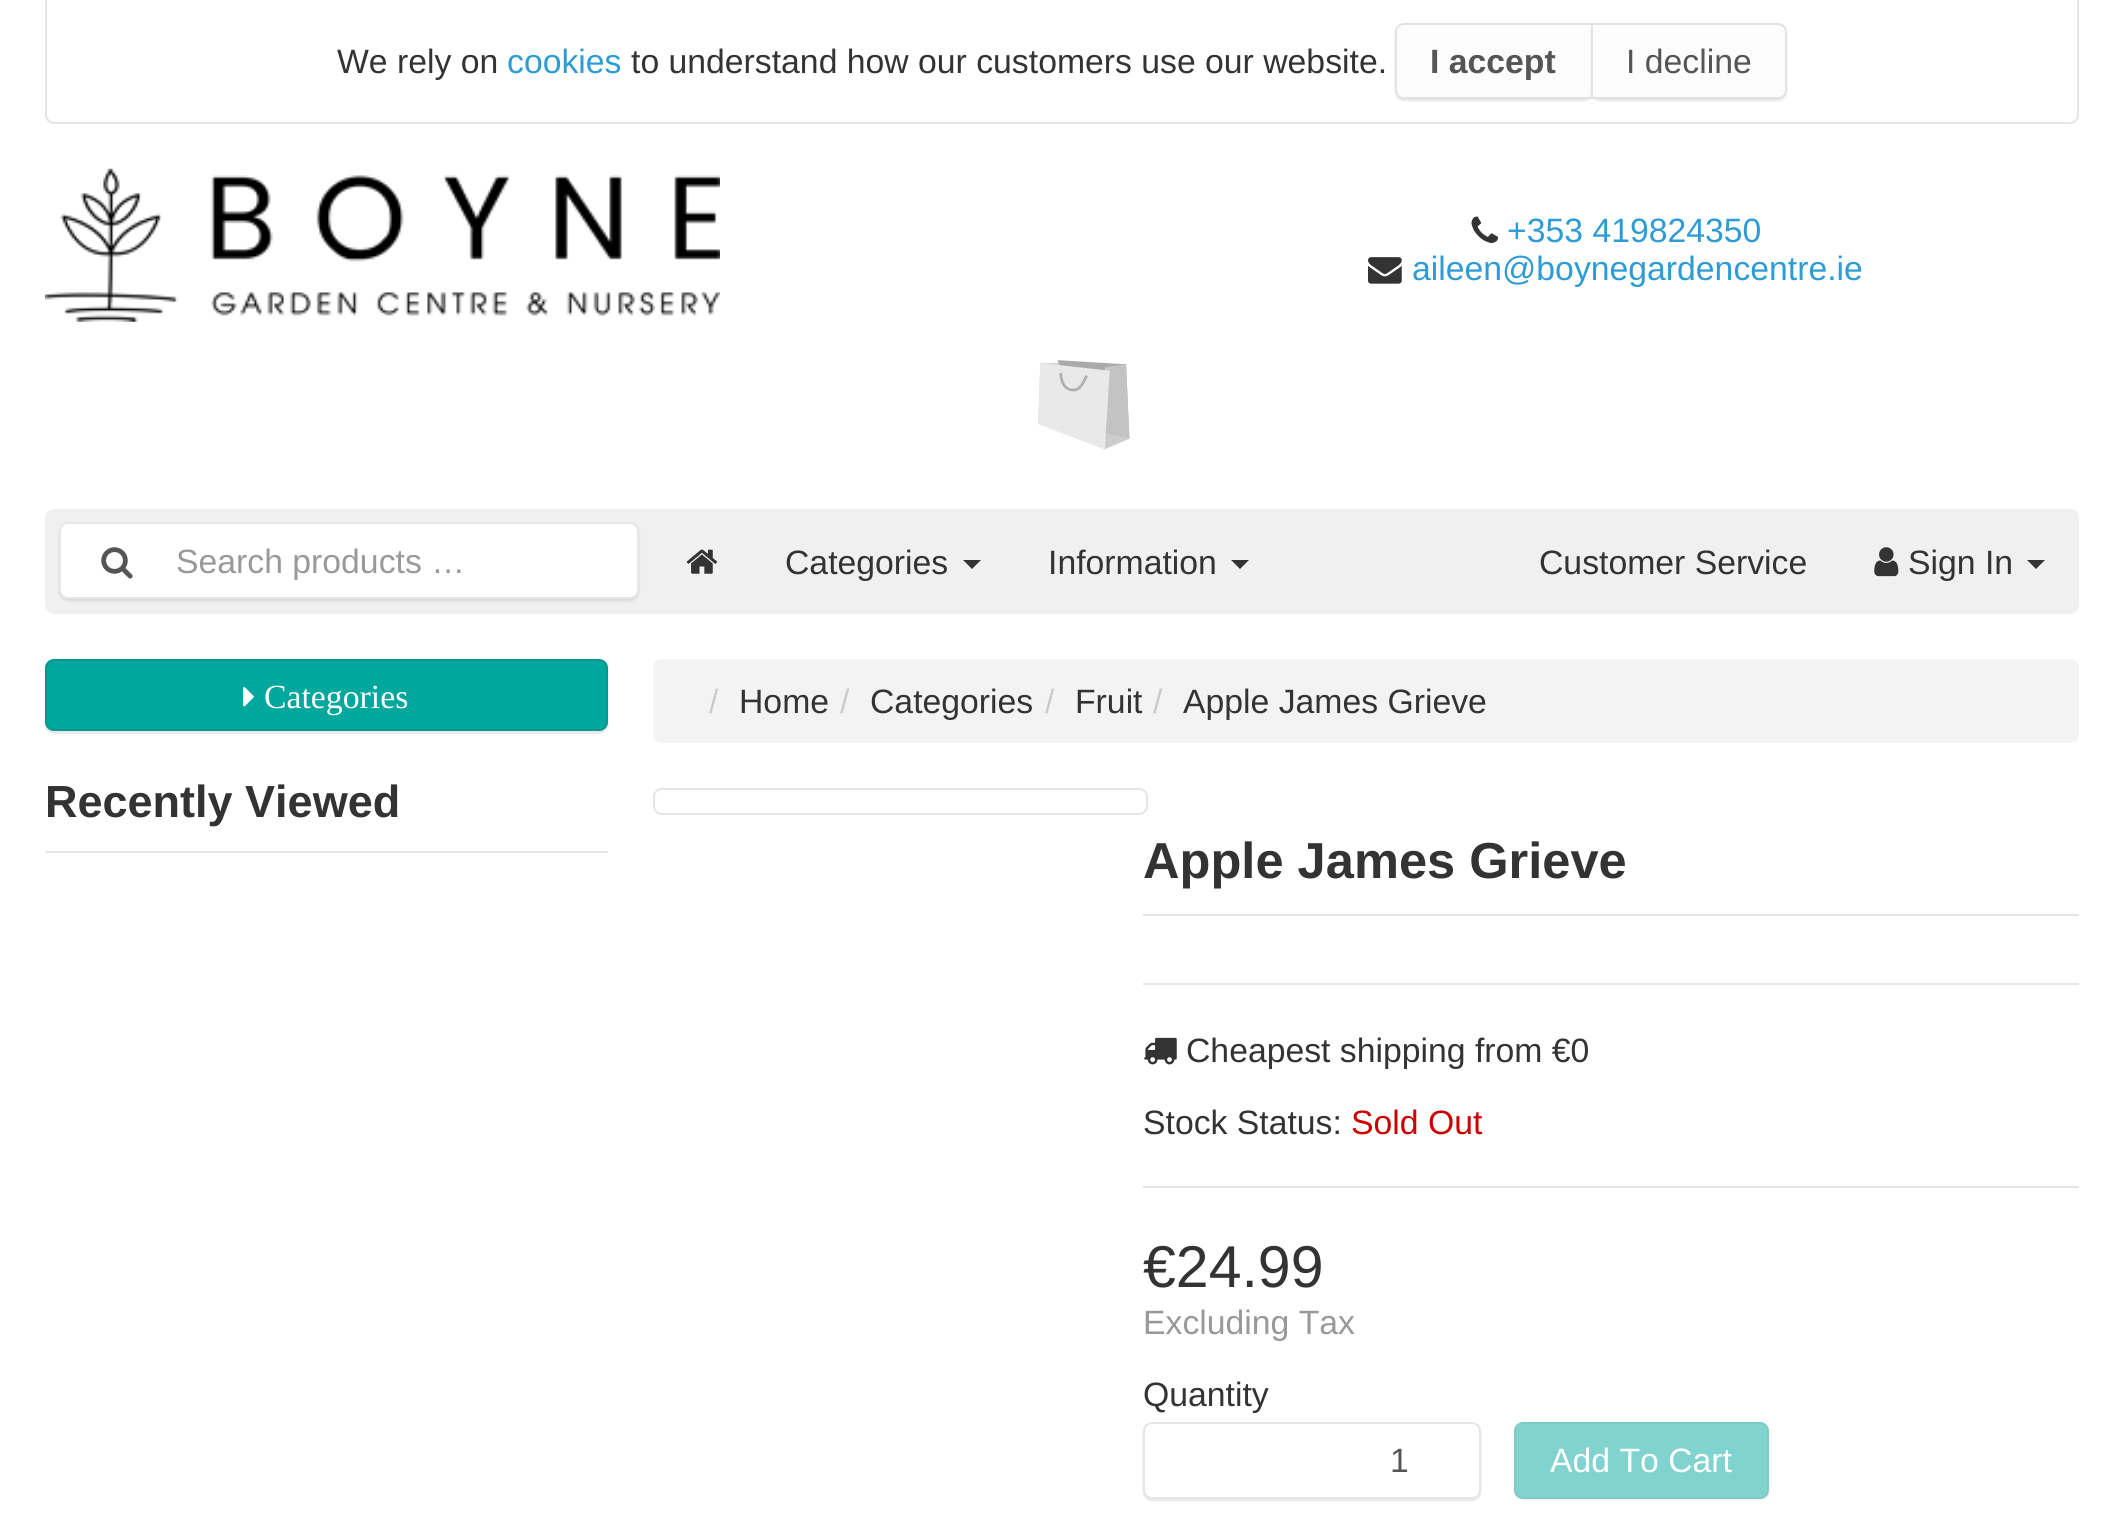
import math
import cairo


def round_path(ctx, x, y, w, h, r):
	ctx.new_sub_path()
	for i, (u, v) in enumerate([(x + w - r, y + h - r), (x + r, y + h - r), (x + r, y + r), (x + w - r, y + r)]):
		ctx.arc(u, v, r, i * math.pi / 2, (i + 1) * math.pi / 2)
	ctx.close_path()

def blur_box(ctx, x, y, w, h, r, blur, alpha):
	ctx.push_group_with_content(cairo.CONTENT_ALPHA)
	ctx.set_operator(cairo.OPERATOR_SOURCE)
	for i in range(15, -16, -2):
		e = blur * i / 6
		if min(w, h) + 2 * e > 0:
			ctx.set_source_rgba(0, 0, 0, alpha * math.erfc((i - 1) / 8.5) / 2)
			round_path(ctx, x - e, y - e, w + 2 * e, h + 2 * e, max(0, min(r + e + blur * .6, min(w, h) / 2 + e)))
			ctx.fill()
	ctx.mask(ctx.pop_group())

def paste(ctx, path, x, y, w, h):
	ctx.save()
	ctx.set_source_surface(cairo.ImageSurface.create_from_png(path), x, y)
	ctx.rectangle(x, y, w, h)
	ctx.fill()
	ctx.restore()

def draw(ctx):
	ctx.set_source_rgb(1, 1, 1)
	ctx.paint()
	ctx.set_source_rgb(0.902, 0.902, 0.902)
	ctx.set_fill_rule(cairo.FILL_RULE_EVEN_ODD)
	ctx.new_path()
	ctx.move_to(45, 0)
	ctx.line_to(2079, 0)
	ctx.line_to(2079, 115)
	ctx.curve_to(2079, 120, 2075, 124, 2070, 124)
	ctx.line_to(54, 124)
	ctx.curve_to(49, 124, 45, 120, 45, 115)
	ctx.close_path()
	ctx.move_to(47, 0)
	ctx.line_to(2077, 0)
	ctx.line_to(2077, 115)
	ctx.curve_to(2077, 118, 2074, 122, 2070, 122)
	ctx.line_to(54, 122)
	ctx.curve_to(50, 122, 47, 118, 47, 115)
	ctx.close_path()
	ctx.fill()
	ctx.select_font_face('Liberation Sans')
	ctx.set_font_size(33.75)
	ctx.set_source_rgb(0.2, 0.2, 0.2)
	ctx.move_to(337, 73)
	ctx.show_text('We rely on')
	ctx.set_source_rgb(0.18, 0.612, 0.831)
	ctx.move_to(507, 73)
	ctx.show_text('cookies')
	ctx.set_source_rgb(0.2, 0.2, 0.2)
	ctx.move_to(631, 73)
	ctx.show_text('to understand how our customers use our website.')
	ctx.set_source_rgb(0, 0, 0)
	blur_box(ctx, 1395, 25, 198, 76, 9, 1, 0.1)
	ctx.set_source_rgb(0.988, 0.988, 0.988)
	ctx.new_path()
	ctx.move_to(1404, 23)
	ctx.line_to(1593, 23)
	ctx.line_to(1593, 99)
	ctx.line_to(1404, 99)
	ctx.curve_to(1399, 99, 1395, 95, 1395, 90)
	ctx.line_to(1395, 32)
	ctx.curve_to(1395, 27, 1399, 23, 1404, 23)
	ctx.close_path()
	ctx.fill()
	ctx.new_path()
	ctx.move_to(1404, 24)
	ctx.line_to(1592, 24)
	ctx.line_to(1592, 98)
	ctx.line_to(1404, 98)
	ctx.curve_to(1399.5, 98, 1396, 94.5, 1396, 90)
	ctx.line_to(1396, 32)
	ctx.curve_to(1396, 27.5, 1399.5, 24, 1404, 24)
	ctx.close_path()
	ctx.set_source_rgba(0, 0, 0, 0.1)
	ctx.stroke()
	ctx.select_font_face('Liberation Sans', cairo.FONT_SLANT_NORMAL, cairo.FONT_WEIGHT_BOLD)
	ctx.set_source_rgb(0.333, 0.333, 0.333)
	ctx.move_to(1430, 73)
	ctx.show_text('I accept')
	ctx.set_source_rgb(0, 0, 0)
	blur_box(ctx, 1591, 25, 196, 76, 9, 1, 0.1)
	ctx.set_source_rgb(0.988, 0.988, 0.988)
	ctx.new_path()
	ctx.move_to(1591, 23)
	ctx.line_to(1778, 23)
	ctx.curve_to(1783, 23, 1787, 27, 1787, 32)
	ctx.line_to(1787, 90)
	ctx.curve_to(1787, 95, 1783, 99, 1778, 99)
	ctx.line_to(1591, 99)
	ctx.close_path()
	ctx.fill()
	ctx.new_path()
	ctx.move_to(1592, 24)
	ctx.line_to(1778, 24)
	ctx.curve_to(1782.5, 24, 1786, 27.5, 1786, 32)
	ctx.line_to(1786, 90)
	ctx.curve_to(1786, 94.5, 1782.5, 98, 1778, 98)
	ctx.line_to(1592, 98)
	ctx.close_path()
	ctx.set_source_rgba(0, 0, 0, 0.1)
	ctx.stroke()
	ctx.select_font_face('Liberation Sans')
	ctx.set_source_rgb(0.333, 0.333, 0.333)
	ctx.move_to(1626, 73)
	ctx.show_text('I decline')
	paste(ctx, 'media/1.png', 45, 168, 675, 154)
	paste(ctx, 'media/2.png', 1471, 216, 27, 27)
	ctx.set_source_rgb(0.18, 0.612, 0.831)
	ctx.move_to(1507, 242)
	ctx.show_text('+353 419824350')
	paste(ctx, 'media/3.png', 1368, 257, 34, 27)
	ctx.move_to(1412, 280)
	ctx.show_text('aileen@boynegardencentre.ie')
	paste(ctx, 'media/4.png', 1038, 360, 92, 90)
	ctx.set_source_rgb(0.941, 0.941, 0.941)
	round_path(ctx, 45, 509, 2034, 105, 9)
	ctx.fill()
	ctx.set_source_rgb(0, 0, 0)
	blur_box(ctx, 59, 524, 580, 77, 9, 1, 0.1)
	ctx.set_source_rgb(1, 1, 1)
	round_path(ctx, 59, 522, 580, 77, 9)
	ctx.fill()
	round_path(ctx, 60, 523, 578, 75, 8)
	ctx.set_source_rgba(0, 0, 0, 0.1)
	ctx.stroke()
	paste(ctx, 'media/5.png', 101, 547, 32, 32)
	ctx.set_source_rgb(0.6, 0.6, 0.6)
	ctx.move_to(176, 573)
	ctx.show_text('Search products …')
	paste(ctx, 'media/6.png', 686, 549, 32, 25)
	ctx.set_source_rgb(0.2, 0.2, 0.2)
	ctx.move_to(785, 574)
	ctx.show_text('Categories')
	ctx.set_fill_rule(cairo.FILL_RULE_WINDING)
	ctx.new_path()
	ctx.move_to(963, 560)
	ctx.line_to(981, 560)
	ctx.line_to(972, 569)
	ctx.close_path()
	ctx.fill()
	ctx.move_to(1048, 574)
	ctx.show_text('Information')
	ctx.new_path()
	ctx.move_to(1231, 560)
	ctx.line_to(1249, 560)
	ctx.line_to(1240, 569)
	ctx.close_path()
	ctx.fill()
	ctx.move_to(1539, 574)
	ctx.show_text('Customer Service')
	paste(ctx, 'media/7.png', 1874, 547, 25, 30)
	ctx.move_to(1908, 574)
	ctx.show_text('Sign In')
	ctx.new_path()
	ctx.move_to(2027, 560)
	ctx.line_to(2045, 560)
	ctx.line_to(2036, 569)
	ctx.close_path()
	ctx.fill()
	ctx.set_source_rgb(0, 0, 0)
	blur_box(ctx, 45, 662, 563, 72, 9, 1, 0.1)
	ctx.set_source_rgb(0, 0.655, 0.616)
	round_path(ctx, 45, 659, 563, 72, 9)
	ctx.fill()
	round_path(ctx, 46, 660, 561, 70, 8)
	ctx.set_source_rgba(0, 0, 0, 0.1)
	ctx.stroke()
	paste(ctx, 'media/8.png', 243, 687, 11, 20)
	ctx.select_font_face('Liberation Serif')
	ctx.set_source_rgb(1, 1, 1)
	ctx.move_to(264, 708)
	ctx.show_text('Categories')
	ctx.set_source_rgb(0.902, 0.902, 0.902)
	ctx.rectangle(45, 851, 563, 2)
	ctx.fill()
	ctx.select_font_face('Liberation Sans', cairo.FONT_SLANT_NORMAL, cairo.FONT_WEIGHT_BOLD)
	ctx.set_font_size(45)
	ctx.set_source_rgb(0.2, 0.2, 0.2)
	ctx.move_to(45, 817)
	ctx.show_text('Recently Viewed')
	ctx.set_source_rgb(0.953, 0.953, 0.953)
	round_path(ctx, 653, 659, 1426, 84, 9)
	ctx.fill()
	ctx.select_font_face('Liberation Sans')
	ctx.set_font_size(33.75)
	ctx.set_source_rgb(0.8, 0.8, 0.8)
	ctx.move_to(709, 713)
	ctx.show_text('/')
	ctx.set_source_rgb(0.2, 0.2, 0.2)
	ctx.move_to(739, 713)
	ctx.show_text('Home')
	ctx.set_source_rgb(0.8, 0.8, 0.8)
	ctx.move_to(840, 713)
	ctx.show_text('/')
	ctx.set_source_rgb(0.2, 0.2, 0.2)
	ctx.move_to(870, 713)
	ctx.show_text('Categories')
	ctx.set_source_rgb(0.8, 0.8, 0.8)
	ctx.move_to(1045, 713)
	ctx.show_text('/')
	ctx.set_source_rgb(0.2, 0.2, 0.2)
	ctx.move_to(1075, 713)
	ctx.show_text('Fruit')
	ctx.set_source_rgb(0.8, 0.8, 0.8)
	ctx.move_to(1153, 713)
	ctx.show_text('/')
	ctx.set_source_rgb(0.2, 0.2, 0.2)
	ctx.move_to(1183, 713)
	ctx.show_text('Apple James Grieve')
	round_path(ctx, 654, 789, 493, 25, 8)
	ctx.set_source_rgb(0.902, 0.902, 0.902)
	ctx.stroke()
	ctx.rectangle(1143, 914, 936, 2)
	ctx.fill()
	ctx.select_font_face('Liberation Sans', cairo.FONT_SLANT_NORMAL, cairo.FONT_WEIGHT_BOLD)
	ctx.set_font_size(50.6)
	ctx.set_source_rgb(0.2, 0.2, 0.2)
	ctx.move_to(1143, 878)
	ctx.show_text('Apple James Grieve')
	ctx.set_source_rgb(0.902, 0.902, 0.902)
	ctx.rectangle(1143, 983, 936, 2)
	ctx.fill()
	paste(ctx, 'media/9.png', 1144, 1037, 33, 28)
	ctx.select_font_face('Liberation Sans')
	ctx.set_font_size(33.75)
	ctx.set_source_rgb(0.2, 0.2, 0.2)
	ctx.move_to(1186, 1062)
	ctx.show_text('Cheapest shipping from €0')
	ctx.move_to(1143, 1134)
	ctx.show_text('Stock Status:')
	ctx.set_source_rgb(0.8, 0, 0)
	ctx.move_to(1351, 1134)
	ctx.show_text('Sold Out')
	ctx.set_source_rgb(0.902, 0.902, 0.902)
	ctx.rectangle(1143, 1186, 936, 2)
	ctx.fill()
	ctx.set_font_size(59)
	ctx.set_source_rgb(0.2, 0.2, 0.2)
	ctx.move_to(1143, 1287)
	ctx.show_text('€24.99')
	ctx.set_font_size(33.75)
	ctx.set_source_rgb(0.6, 0.6, 0.6)
	ctx.move_to(1143, 1334)
	ctx.show_text('Excluding Tax')
	ctx.set_source_rgb(0.2, 0.2, 0.2)
	ctx.move_to(1143, 1406)
	ctx.show_text('Quantity')
	ctx.set_source_rgb(0, 0, 0)
	blur_box(ctx, 1143, 1424, 338, 77, 9, 1, 0.1)
	ctx.set_source_rgb(1, 1, 1)
	round_path(ctx, 1143, 1422, 338, 77, 9)
	ctx.fill()
	round_path(ctx, 1144, 1423, 336, 75, 8)
	ctx.set_source_rgba(0, 0, 0, 0.1)
	ctx.stroke()
	ctx.set_source_rgb(0.333, 0.333, 0.333)
	ctx.move_to(1390, 1472)
	ctx.show_text('1')
	ctx.set_source_rgb(0.502, 0.502, 0.502)
	blur_box(ctx, 1514, 1424, 255, 77, 9, 1, 0.1)
	ctx.set_source_rgb(0.502, 0.827, 0.808)
	round_path(ctx, 1514, 1422, 255, 77, 9)
	ctx.fill()
	round_path(ctx, 1515, 1423, 253, 75, 8)
	ctx.set_source_rgba(0.502, 0.502, 0.502, 0.1)
	ctx.stroke()
	ctx.set_source_rgb(1, 1, 1)
	ctx.move_to(1550, 1472)
	ctx.show_text('Add To Cart')


surface = cairo.ImageSurface(cairo.FORMAT_RGB24, 2123, 1520)
ctx = cairo.Context(surface)
options = cairo.FontOptions()
options.set_hint_metrics(cairo.HINT_METRICS_OFF)
options.set_hint_style(cairo.HINT_STYLE_NONE)
ctx.set_font_options(options)
ctx.set_miter_limit(4)
draw(ctx)
surface.write_to_png('image.png')
